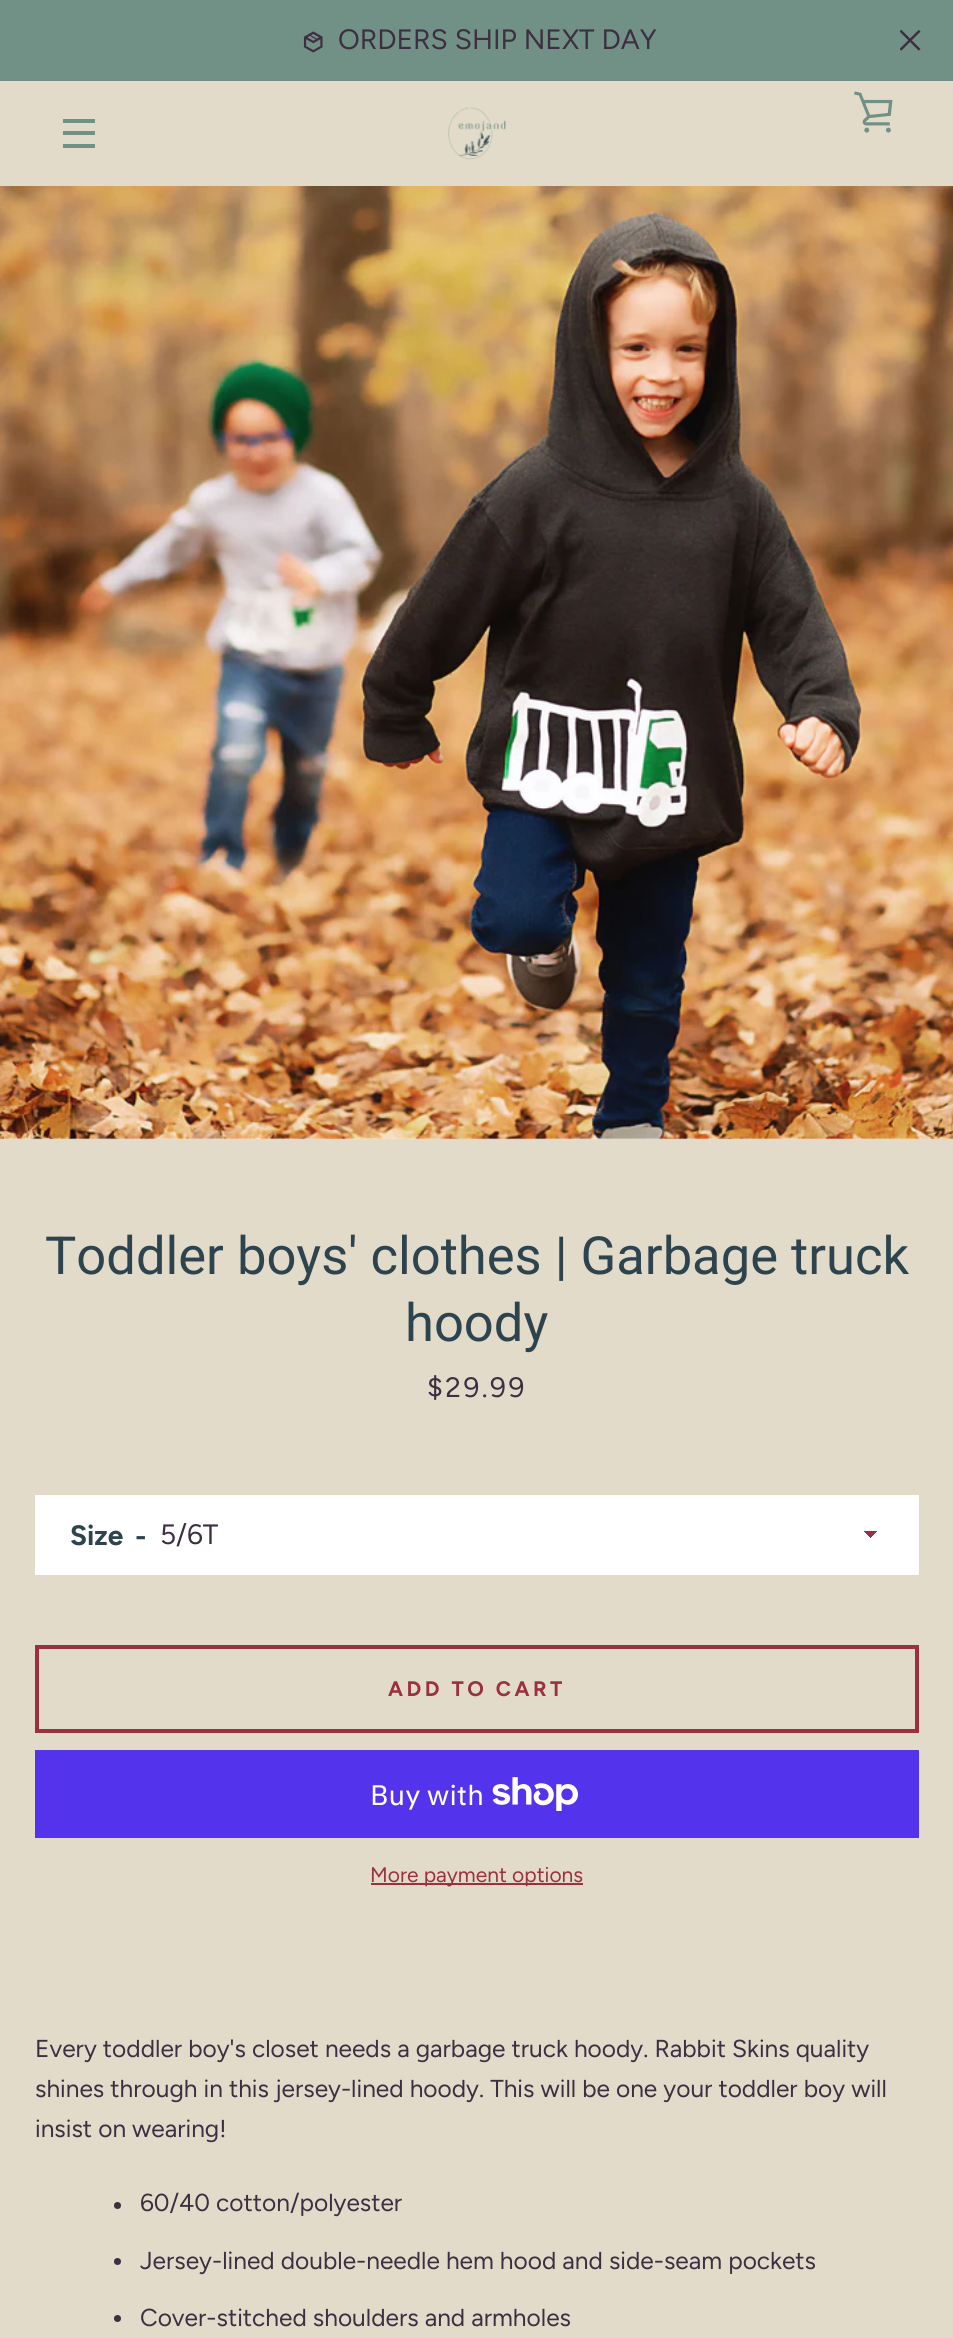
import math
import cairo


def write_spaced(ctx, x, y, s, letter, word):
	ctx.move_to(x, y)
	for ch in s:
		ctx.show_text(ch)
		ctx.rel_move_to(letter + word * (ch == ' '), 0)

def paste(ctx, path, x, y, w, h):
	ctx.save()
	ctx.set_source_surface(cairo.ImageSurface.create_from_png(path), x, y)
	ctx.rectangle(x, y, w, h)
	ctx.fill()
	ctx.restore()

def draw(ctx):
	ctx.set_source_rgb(0.886, 0.859, 0.792)
	ctx.paint()
	ctx.set_source_rgb(0.443, 0.565, 0.525)
	ctx.rectangle(0, 0, 953, 81)
	ctx.fill()
	paste(ctx, 'media/1.png', 303, 31, 20, 22)
	ctx.select_font_face('Figtree')
	ctx.set_font_size(28)
	ctx.set_source_rgb(0.239, 0.184, 0.255)
	ctx.move_to(338, 49)
	ctx.show_text('ORDERS SHIP NEXT DAY')
	paste(ctx, 'media/2.png', 900, 30, 21, 21)
	ctx.set_source_rgb(0.443, 0.565, 0.525)
	ctx.rectangle(63, 119, 32, 4)
	ctx.rectangle(63, 131, 32, 4)
	ctx.rectangle(63, 144, 32, 4)
	ctx.fill()
	paste(ctx, 'media/3.png', 448, 107, 58, 53)
	paste(ctx, 'media/4.png', 854, 91, 39, 42)
	paste(ctx, 'media/5.png', 0, 186, 953, 954)
	ctx.select_font_face('Roboto')
	ctx.set_font_size(52.5)
	ctx.set_source_rgb(0.176, 0.267, 0.31)
	ctx.move_to(45, 1274)
	ctx.show_text('Toddler boys\' clothes | Garbage truck')
	ctx.move_to(405, 1341)
	ctx.show_text('hoody')
	ctx.select_font_face('Figtree')
	ctx.set_font_size(28)
	ctx.set_source_rgb(0.239, 0.184, 0.255)
	write_spaced(ctx, 427, 1397, '$29.99', 2.5, 0)
	ctx.set_source_rgb(1, 1, 1)
	ctx.rectangle(35, 1495, 884, 80)
	ctx.fill()
	ctx.select_font_face('Figtree', cairo.FONT_SLANT_NORMAL, cairo.FONT_WEIGHT_BOLD)
	ctx.set_source_rgb(0.176, 0.267, 0.31)
	ctx.move_to(70, 1545)
	ctx.show_text('Size')
	ctx.move_to(135, 1546)
	ctx.show_text('-')
	gradient = cairo.LinearGradient(870, 1531, 877, 1538)
	gradient.add_color_stop_rgba(0.5, 0.612, 0.188, 0.263, 1)
	gradient.add_color_stop_rgba(0.5, 1, 1, 1, 1)
	ctx.set_source(gradient)
	ctx.rectangle(870, 1531, 7, 7)
	ctx.fill()
	gradient = cairo.LinearGradient(863, 1538, 870, 1531)
	gradient.add_color_stop_rgba(0.5, 1, 1, 1, 1)
	gradient.add_color_stop_rgba(0.5, 0.612, 0.188, 0.263, 1)
	ctx.set_source(gradient)
	ctx.rectangle(863, 1531, 7, 6)
	ctx.fill()
	ctx.select_font_face('Figtree')
	ctx.set_source_rgb(0.239, 0.184, 0.255)
	ctx.move_to(160, 1544)
	ctx.show_text('5/6T')
	ctx.rectangle(37, 1647, 880, 84)
	ctx.set_source_rgb(0.612, 0.188, 0.263)
	ctx.set_line_width(4)
	ctx.stroke()
	ctx.select_font_face('Figtree', cairo.FONT_SLANT_NORMAL, cairo.FONT_WEIGHT_BOLD)
	ctx.set_font_size(21)
	write_spaced(ctx, 388, 1696, 'ADD TO CART', 3.5, 0)
	ctx.set_source_rgb(0.329, 0.2, 0.922)
	ctx.rectangle(35, 1750, 884, 88)
	ctx.fill()
	ctx.select_font_face('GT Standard')
	ctx.set_font_size(28)
	ctx.set_source_rgb(1, 1, 1)
	ctx.move_to(370, 1805)
	ctx.show_text('Buy with')
	paste(ctx, 'media/6.png', 492, 1777, 86, 34)
	ctx.set_source_rgb(0.612, 0.188, 0.263)
	ctx.rectangle(371, 1883, 212, 2)
	ctx.fill()
	ctx.select_font_face('Figtree')
	ctx.set_font_size(21)
	ctx.move_to(370, 1882)
	ctx.show_text('More payment options')
	ctx.set_font_size(24.5)
	ctx.set_source_rgb(0.239, 0.184, 0.255)
	for x, y, s in [
		(35, 2057, 'Every toddler boy\'s closet needs a garbage truck hoody. Rabbit Skins quality'),
		(35, 2097, 'shines through in this jersey-lined hoody. This will be one your toddler boy will'),
		(35, 2137, 'insist on wearing!'),
	]:
		ctx.move_to(x, y)
		ctx.show_text(s)
	ctx.new_path()
	ctx.arc(117.5, 2205.5, 3.5, 0, 2 * math.pi)
	ctx.fill()
	ctx.move_to(140, 2211)
	ctx.show_text('60/40 cotton/polyester')
	ctx.new_path()
	ctx.arc(117.5, 2261.5, 3.5, 0, 2 * math.pi)
	ctx.fill()
	ctx.move_to(140, 2269)
	ctx.show_text('Jersey-lined double-needle hem hood and side-seam pockets')
	ctx.new_path()
	ctx.arc(117.5, 2318.5, 3.5, 0, 2 * math.pi)
	ctx.fill()
	ctx.move_to(140, 2326)
	ctx.show_text('Cover-stitched shoulders and armholes')


surface = cairo.ImageSurface(cairo.FORMAT_RGB24, 953, 2338)
ctx = cairo.Context(surface)
options = cairo.FontOptions()
options.set_hint_metrics(cairo.HINT_METRICS_OFF)
options.set_hint_style(cairo.HINT_STYLE_NONE)
ctx.set_font_options(options)
ctx.set_miter_limit(4)
draw(ctx)
surface.write_to_png('image.png')
